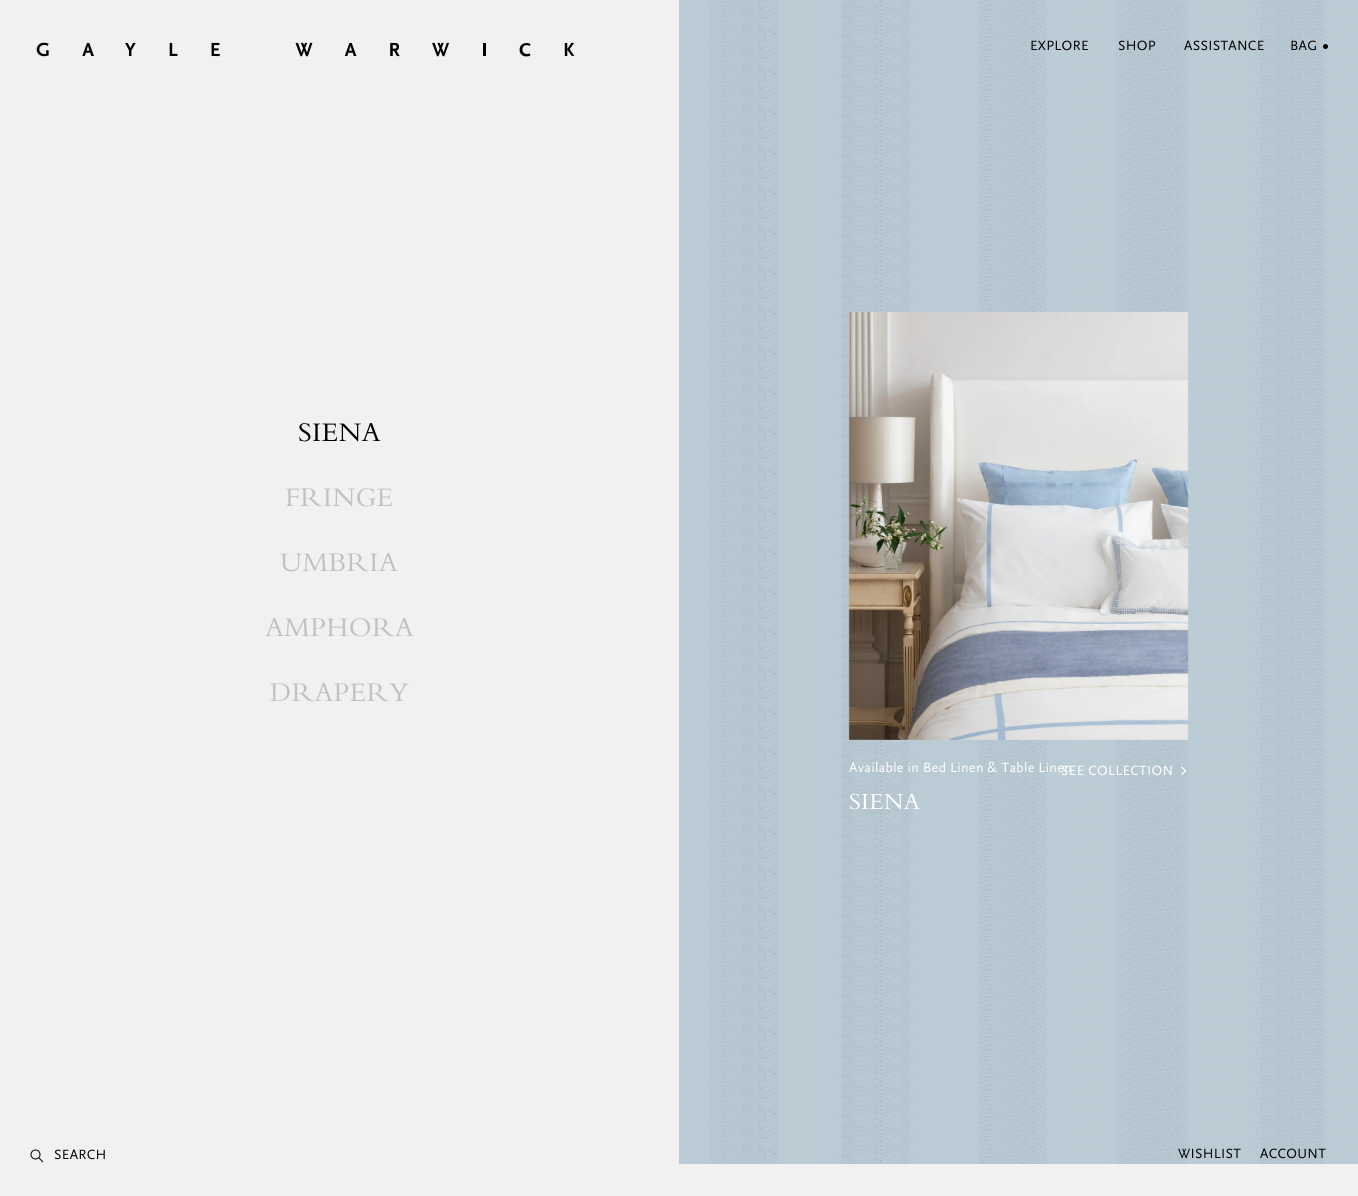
import math
import cairo


def write_spaced(ctx, x, y, s, letter, word):
	ctx.move_to(x, y)
	for ch in s:
		ctx.show_text(ch)
		ctx.rel_move_to(letter + word * (ch == ' '), 0)

def paste(ctx, path, x, y, w, h):
	ctx.save()
	ctx.set_source_surface(cairo.ImageSurface.create_from_png(path), x, y)
	ctx.rectangle(x, y, w, h)
	ctx.fill()
	ctx.restore()

def draw(ctx):
	ctx.set_source_rgb(0.949, 0.941, 0.945)
	ctx.paint()
	paste(ctx, 'media/1.png', 36, 42, 539, 15)
	paste(ctx, 'media/7.png', 679, 0, 679, 1164)
	ctx.select_font_face('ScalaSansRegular')
	ctx.set_font_size(14)
	ctx.set_source_rgb(0, 0, 0)
	for x, y, s in [
		(1030, 50, 'EXPLORE'),
		(1118, 50, 'SHOP'),
		(1184, 50, 'ASSISTANCE'),
		(1290, 50, 'BAG'),
	]:
		write_spaced(ctx, x, y, s, 0.3, 0)
	ctx.new_path()
	ctx.arc(1325.5, 46.5, 2.5, 0, 2 * math.pi)
	ctx.fill()
	paste(ctx, 'media/2.png', 299, 423, 82, 19)
	paste(ctx, 'media/3.png', 286, 488, 106, 19)
	paste(ctx, 'media/4.png', 280, 553, 118, 19)
	paste(ctx, 'media/5.png', 265, 618, 149, 19)
	paste(ctx, 'media/6.png', 270, 683, 139, 19)
	paste(ctx, 'media/8.png', 848, 312, 341, 428)
	ctx.set_source_rgb(1, 1, 1)
	write_spaced(ctx, 849, 772, 'Available in Bed Linen & Table Linen', 0.3, 0)
	paste(ctx, 'media/9.png', 850, 793, 70, 17)
	write_spaced(ctx, 1061, 775, 'SEE COLLECTION', 0.3, 0)
	paste(ctx, 'media/10.png', 1181, 766, 6, 10)
	paste(ctx, 'media/11.png', 30, 1149, 14, 14)
	ctx.set_source_rgb(0, 0, 0)
	for x, y, s in [
		(54, 1159, 'SEARCH'),
		(1178, 1158, 'WISHLIST'),
		(1260, 1158, 'ACCOUNT'),
	]:
		write_spaced(ctx, x, y, s, 0.3, 0)


surface = cairo.ImageSurface(cairo.FORMAT_RGB24, 1358, 1196)
ctx = cairo.Context(surface)
options = cairo.FontOptions()
options.set_hint_metrics(cairo.HINT_METRICS_OFF)
options.set_hint_style(cairo.HINT_STYLE_NONE)
ctx.set_font_options(options)
ctx.set_miter_limit(4)
draw(ctx)
surface.write_to_png('image.png')
